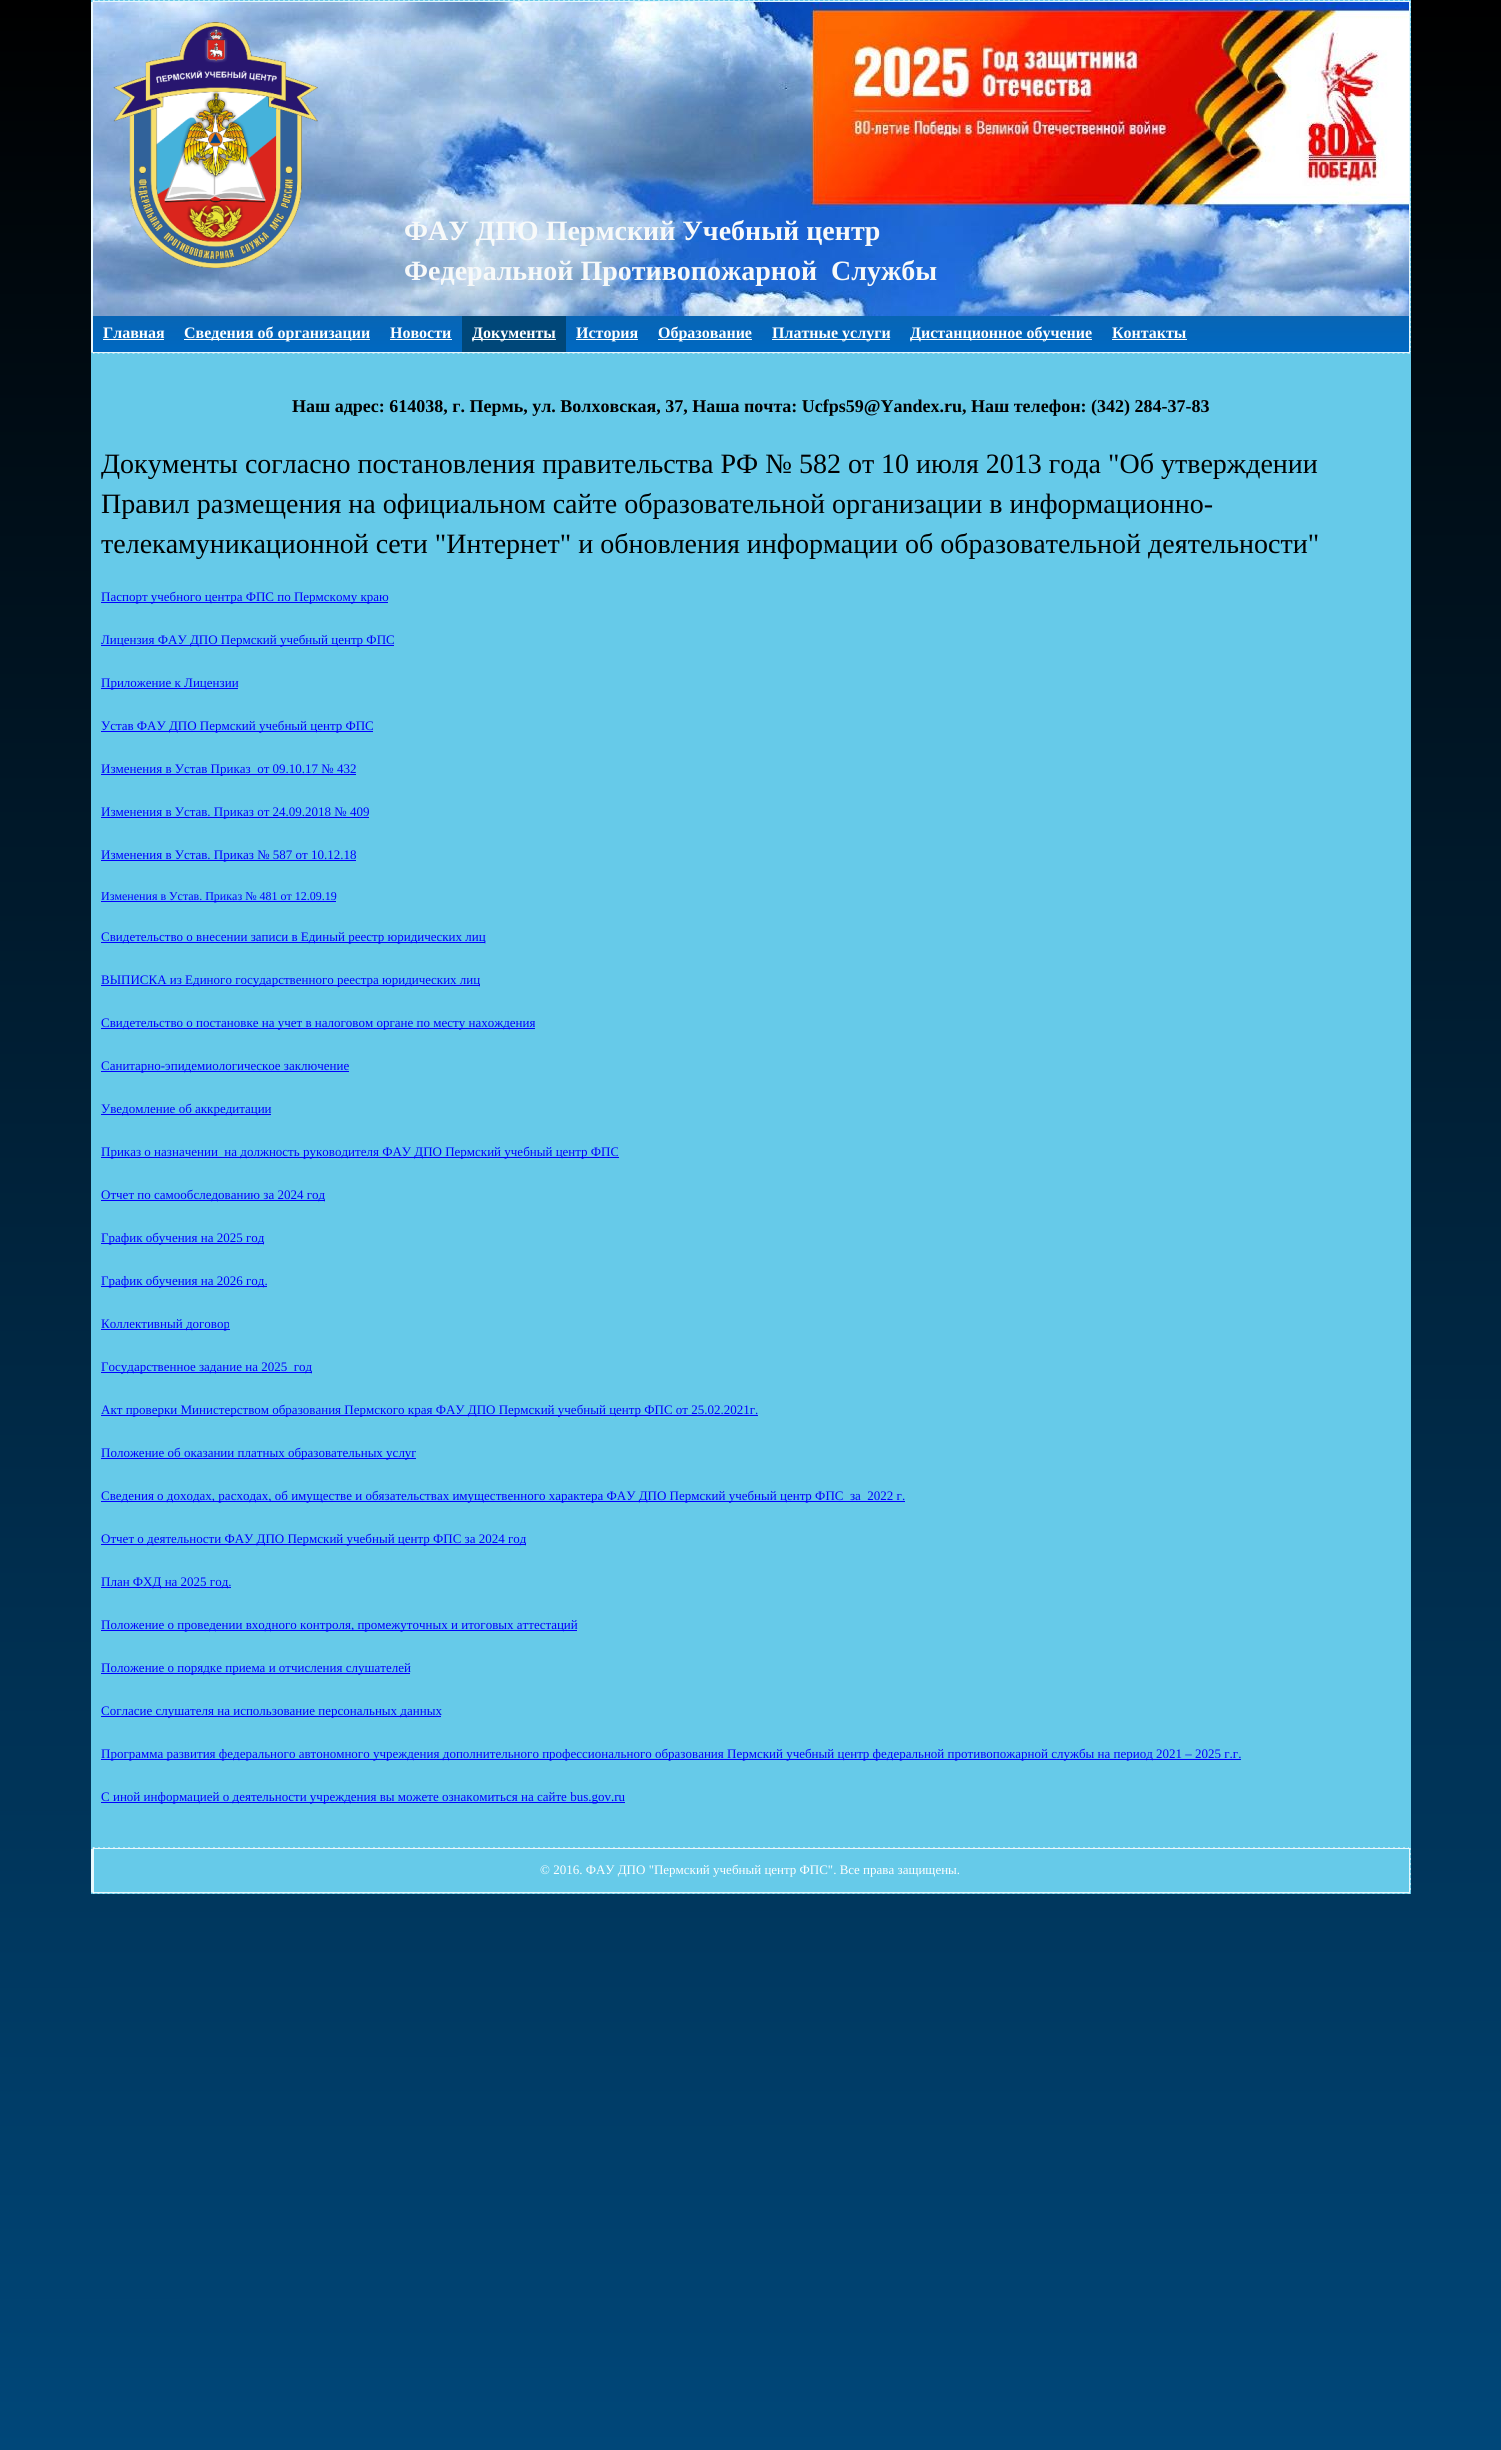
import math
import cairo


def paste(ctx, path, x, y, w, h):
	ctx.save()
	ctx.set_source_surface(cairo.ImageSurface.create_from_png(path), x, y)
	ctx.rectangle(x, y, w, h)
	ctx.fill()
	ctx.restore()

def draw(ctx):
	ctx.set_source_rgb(1, 1, 1)
	ctx.paint()
	gradient = cairo.LinearGradient(750, 0, 751, 2450)
	gradient.add_color_stop_rgba(0, 0, 0, 0, 1)
	gradient.add_color_stop_rgba(1, 0, 0.278, 0.475, 1)
	ctx.set_source(gradient)
	ctx.rectangle(0, 0, 1501, 2450)
	ctx.fill()
	ctx.set_source_rgb(0.4, 0.792, 0.914)
	ctx.rectangle(91, 0, 1320, 1894)
	ctx.fill()
	paste(ctx, 'media/1.png', 92, 0, 2, 2)
	paste(ctx, 'media/2.png', 1409, 1, 2, 1)
	paste(ctx, 'media/3.png', 93, 0, 1316, 2)
	ctx.set_source_rgb(0.91, 0.969, 0.988)
	ctx.rectangle(91, 2, 2, 350)
	ctx.fill()
	paste(ctx, 'media/4.png', 1409, 2, 2, 350)
	gradient = cairo.LinearGradient(751, 2, 751, 352)
	gradient.add_color_stop_rgba(0, 0.298, 0.298, 0.298, 1)
	gradient.add_color_stop_rgba(1, 0, 0.408, 0.757, 1)
	ctx.set_source(gradient)
	ctx.rectangle(93, 316, 1316, 36)
	ctx.fill()
	paste(ctx, 'media/5.png', 93, 2, 1316, 314)
	paste(ctx, 'media/6.png', 113, 22, 205, 246)
	ctx.select_font_face('Liberation Serif', cairo.FONT_SLANT_NORMAL, cairo.FONT_WEIGHT_BOLD)
	ctx.set_font_size(28)
	ctx.set_source_rgb(0.965, 0.976, 0.976)
	ctx.move_to(404, 240)
	ctx.show_text('ФАУ ДПО Пермский Учебный центр')
	ctx.move_to(404, 280)
	ctx.show_text('Федеральной Противопожарной  Службы')
	ctx.set_font_size(16)
	ctx.set_source_rgb(1, 1, 1)
	ctx.move_to(103, 338)
	ctx.show_text('Главная')
	ctx.rectangle(103, 339, 61, 1)
	ctx.fill()
	ctx.rectangle(184, 339, 186, 1)
	ctx.fill()
	ctx.move_to(184, 338)
	ctx.show_text('Сведения об организации')
	ctx.move_to(390, 338)
	ctx.show_text('Новости')
	ctx.rectangle(390, 339, 62, 1)
	ctx.fill()
	ctx.set_source_rgb(0, 0.278, 0.475)
	ctx.rectangle(462, 316, 104, 36)
	ctx.fill()
	ctx.set_source_rgb(1, 1, 1)
	ctx.rectangle(472, 339, 84, 1)
	ctx.fill()
	ctx.move_to(472, 338)
	ctx.show_text('Документы')
	ctx.rectangle(576, 339, 62, 1)
	ctx.fill()
	ctx.move_to(576, 338)
	ctx.show_text('История')
	ctx.rectangle(658, 339, 94, 1)
	ctx.fill()
	ctx.move_to(658, 338)
	ctx.show_text('Образование')
	ctx.rectangle(772, 339, 118, 1)
	ctx.fill()
	ctx.move_to(772, 338)
	ctx.show_text('Платные услуги')
	ctx.rectangle(910, 339, 182, 1)
	ctx.fill()
	ctx.move_to(910, 338)
	ctx.show_text('Дистанционное обучение')
	ctx.move_to(1112, 338)
	ctx.show_text('Контакты')
	ctx.rectangle(1112, 339, 75, 1)
	ctx.fill()
	paste(ctx, 'media/7.png', 91, 352, 3, 1)
	paste(ctx, 'media/8.png', 1409, 352, 1, 2)
	paste(ctx, 'media/9.png', 93, 352, 1316, 2)
	ctx.set_font_size(18)
	ctx.set_source_rgb(0, 0, 0)
	ctx.move_to(292, 412)
	ctx.show_text('Наш адрес: 614038, г. Пермь, ул. Волховская, 37, Наша почта: Ucfps59@Yandex.ru, Наш телефон: (342) 284-37-83')
	ctx.save()
	ctx.rectangle(101, 437, 1300, 134)
	ctx.clip()
	ctx.select_font_face('Liberation Serif')
	ctx.set_font_size(28)
	ctx.move_to(101, 473)
	ctx.show_text('Документы согласно постановления правительства РФ № 582 от 10 июля 2013 года "Об утверждении')
	ctx.restore()
	ctx.select_font_face('Liberation Serif')
	ctx.set_font_size(28)
	ctx.move_to(101, 513)
	ctx.show_text('Правил размещения на официальном сайте образовательной организации в информационно-')
	ctx.save()
	ctx.rectangle(101, 437, 1300, 134)
	ctx.clip()
	ctx.move_to(101, 553)
	ctx.show_text('телекамуникационной сети "Интернет" и обновления информации об образовательной деятельности"')
	ctx.restore()
	ctx.set_source_rgb(0, 0, 1)
	ctx.rectangle(101, 602, 287, 1)
	ctx.fill()
	ctx.set_font_size(13)
	ctx.move_to(101, 601)
	ctx.show_text('Паспорт учебного центра ФПС по Пермскому краю')
	ctx.rectangle(101, 645, 293, 1)
	ctx.fill()
	ctx.move_to(101, 644)
	ctx.show_text('Лицензия ФАУ ДПО Пермский учебный центр ФПС')
	ctx.rectangle(101, 688, 137, 1)
	ctx.fill()
	ctx.move_to(101, 687)
	ctx.show_text('Приложение к Лицензии')
	ctx.rectangle(101, 731, 272, 1)
	ctx.fill()
	ctx.move_to(101, 730)
	ctx.show_text('Устав ФАУ ДПО Пермский учебный центр ФПС')
	ctx.rectangle(101, 774, 255, 1)
	ctx.fill()
	ctx.move_to(101, 773)
	ctx.show_text('Изменения в Устав Приказ  от 09.10.17 № 432')
	ctx.rectangle(101, 817, 268, 1)
	ctx.fill()
	ctx.move_to(101, 816)
	ctx.show_text('Изменения в Устав. Приказ от 24.09.2018 № 409')
	ctx.rectangle(101, 860, 255, 1)
	ctx.fill()
	ctx.move_to(101, 859)
	ctx.show_text('Изменения в Устав. Приказ № 587 от 10.12.18')
	ctx.rectangle(101, 901, 235, 1)
	ctx.fill()
	ctx.set_font_size(12)
	ctx.move_to(101, 900)
	ctx.show_text('Изменения в Устав. Приказ № 481 от 12.09.19')
	ctx.rectangle(101, 942, 384, 1)
	ctx.fill()
	ctx.set_font_size(13)
	ctx.move_to(101, 941)
	ctx.show_text('Свидетельство о внесении записи в Единый реестр юридических лиц')
	ctx.rectangle(101, 985, 379, 1)
	ctx.fill()
	ctx.move_to(101, 984)
	ctx.show_text('ВЫПИСКА из Единого государственного реестра юридических лиц')
	ctx.rectangle(101, 1028, 434, 1)
	ctx.fill()
	ctx.move_to(101, 1027)
	ctx.show_text('Свидетельство о постановке на учет в налоговом органе по месту нахождения')
	ctx.rectangle(101, 1071, 248, 1)
	ctx.fill()
	ctx.move_to(101, 1070)
	ctx.show_text('Санитарно-эпидемиологическое заключение')
	ctx.rectangle(101, 1114, 170, 1)
	ctx.fill()
	ctx.move_to(101, 1113)
	ctx.show_text('Уведомление об аккредитации')
	ctx.rectangle(101, 1157, 518, 1)
	ctx.fill()
	ctx.move_to(101, 1156)
	ctx.show_text('Приказ о назначении  на должность руководителя ФАУ ДПО Пермский учебный центр ФПС')
	ctx.rectangle(101, 1200, 224, 1)
	ctx.fill()
	ctx.move_to(101, 1199)
	ctx.show_text('Отчет по самообследованию за 2024 год')
	ctx.rectangle(101, 1243, 163, 1)
	ctx.fill()
	ctx.move_to(101, 1242)
	ctx.show_text('График обучения на 2025 год')
	ctx.rectangle(101, 1286, 166, 1)
	ctx.fill()
	ctx.move_to(101, 1285)
	ctx.show_text('График обучения на 2026 год.')
	ctx.rectangle(101, 1329, 129, 1)
	ctx.fill()
	ctx.move_to(101, 1328)
	ctx.show_text('Коллективный договор')
	ctx.rectangle(101, 1372, 211, 1)
	ctx.fill()
	ctx.move_to(101, 1371)
	ctx.show_text('Государственное задание на 2025  год')
	ctx.rectangle(101, 1415, 657, 1)
	ctx.fill()
	ctx.move_to(101, 1414)
	ctx.show_text('Акт проверки Министерством образования Пермского края ФАУ ДПО Пермский учебный центр ФПС от 25.02.2021г.')
	ctx.rectangle(101, 1458, 315, 1)
	ctx.fill()
	ctx.move_to(101, 1457)
	ctx.show_text('Положение об оказании платных образовательных услуг')
	ctx.rectangle(101, 1501, 804, 1)
	ctx.fill()
	ctx.move_to(101, 1500)
	ctx.show_text('Сведения о доходах, расходах, об имуществе и обязательствах имущественного характера ФАУ ДПО Пермский учебный центр ФПС  за  2022 г.')
	ctx.rectangle(101, 1544, 425, 1)
	ctx.fill()
	ctx.move_to(101, 1543)
	ctx.show_text('Отчет о деятельности ФАУ ДПО Пермский учебный центр ФПС за 2024 год')
	ctx.rectangle(101, 1587, 130, 1)
	ctx.fill()
	ctx.move_to(101, 1586)
	ctx.show_text('План ФХД на 2025 год.')
	ctx.rectangle(101, 1630, 476, 1)
	ctx.fill()
	ctx.move_to(101, 1629)
	ctx.show_text('Положение о проведении входного контроля, промежуточных и итоговых аттестаций')
	ctx.rectangle(101, 1673, 309, 1)
	ctx.fill()
	ctx.move_to(101, 1672)
	ctx.show_text('Положение о порядке приема и отчисления слушателей')
	ctx.rectangle(101, 1716, 340, 1)
	ctx.fill()
	ctx.move_to(101, 1715)
	ctx.show_text('Согласие слушателя на использование персональных данных')
	ctx.rectangle(101, 1759, 1140, 1)
	ctx.fill()
	ctx.move_to(101, 1758)
	ctx.show_text('Программа развития федерального автономного учреждения дополнительного профессионального образования Пермский учебный центр федеральной противопожарной службы на период 2021 – 2025 г.г.')
	ctx.rectangle(101, 1802, 524, 1)
	ctx.fill()
	ctx.move_to(101, 1801)
	ctx.show_text('С иной информацией о деятельности учреждения вы можете ознакомиться на сайте bus.gov.ru')
	paste(ctx, 'media/1.png', 92, 1847, 2, 2)
	paste(ctx, 'media/2.png', 1409, 1848, 2, 1)
	paste(ctx, 'media/3.png', 93, 1847, 1316, 2)
	ctx.set_source_rgb(0.91, 0.969, 0.988)
	ctx.rectangle(91, 1849, 3, 43)
	ctx.fill()
	paste(ctx, 'media/10.png', 1409, 1849, 2, 43)
	ctx.set_source_rgb(1, 1, 1)
	ctx.move_to(540, 1874)
	ctx.show_text('© 2016. ФАУ ДПО "Пермский учебный центр ФПС". Все права защищены.')
	paste(ctx, 'media/7.png', 91, 1892, 3, 1)
	paste(ctx, 'media/8.png', 1409, 1892, 1, 2)
	paste(ctx, 'media/9.png', 93, 1892, 1316, 2)


surface = cairo.ImageSurface(cairo.FORMAT_RGB24, 1501, 2450)
ctx = cairo.Context(surface)
options = cairo.FontOptions()
options.set_hint_metrics(cairo.HINT_METRICS_OFF)
options.set_hint_style(cairo.HINT_STYLE_NONE)
ctx.set_font_options(options)
ctx.set_miter_limit(4)
draw(ctx)
surface.write_to_png('image.png')
